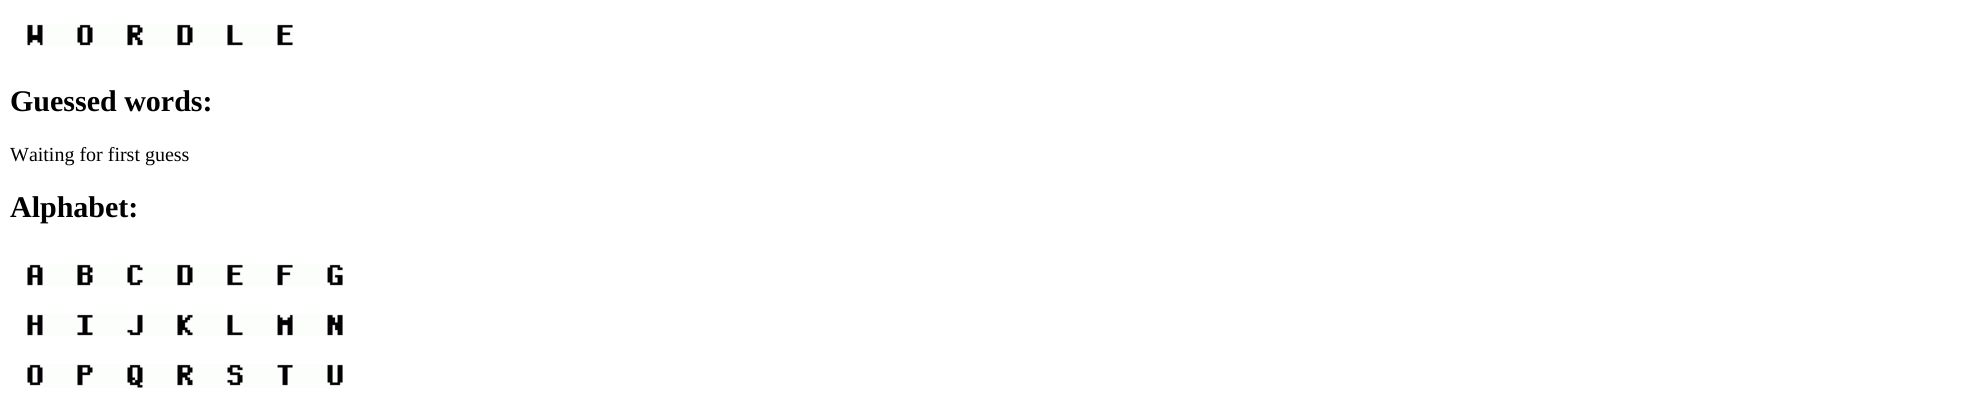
import math
import cairo


def paste(ctx, path, x, y, w, h):
	ctx.save()
	ctx.set_source_surface(cairo.ImageSurface.create_from_png(path), x, y)
	ctx.rectangle(x, y, w, h)
	ctx.fill()
	ctx.restore()

def draw(ctx):
	ctx.set_source_rgb(1, 1, 1)
	ctx.paint()
	paste(ctx, 'media/1.png', 27, 24, 266, 22)
	ctx.select_font_face('Liberation Serif', cairo.FONT_SLANT_NORMAL, cairo.FONT_WEIGHT_BOLD)
	ctx.set_font_size(30)
	ctx.set_source_rgb(0, 0, 0)
	ctx.move_to(10, 111)
	ctx.show_text('Guessed words:')
	ctx.select_font_face('Liberation Serif')
	ctx.set_font_size(20)
	ctx.move_to(10, 161)
	ctx.show_text('Waiting for first guess')
	ctx.select_font_face('Liberation Serif', cairo.FONT_SLANT_NORMAL, cairo.FONT_WEIGHT_BOLD)
	ctx.set_font_size(30)
	ctx.move_to(10, 217)
	ctx.show_text('Alphabet:')
	paste(ctx, 'media/2.png', 27, 264, 316, 22)
	paste(ctx, 'media/3.png', 27, 314, 316, 22)
	paste(ctx, 'media/4.png', 27, 364, 316, 24)


surface = cairo.ImageSurface(cairo.FORMAT_RGB24, 1971, 411)
ctx = cairo.Context(surface)
options = cairo.FontOptions()
options.set_hint_metrics(cairo.HINT_METRICS_OFF)
options.set_hint_style(cairo.HINT_STYLE_NONE)
ctx.set_font_options(options)
ctx.set_miter_limit(4)
draw(ctx)
surface.write_to_png('image.png')
